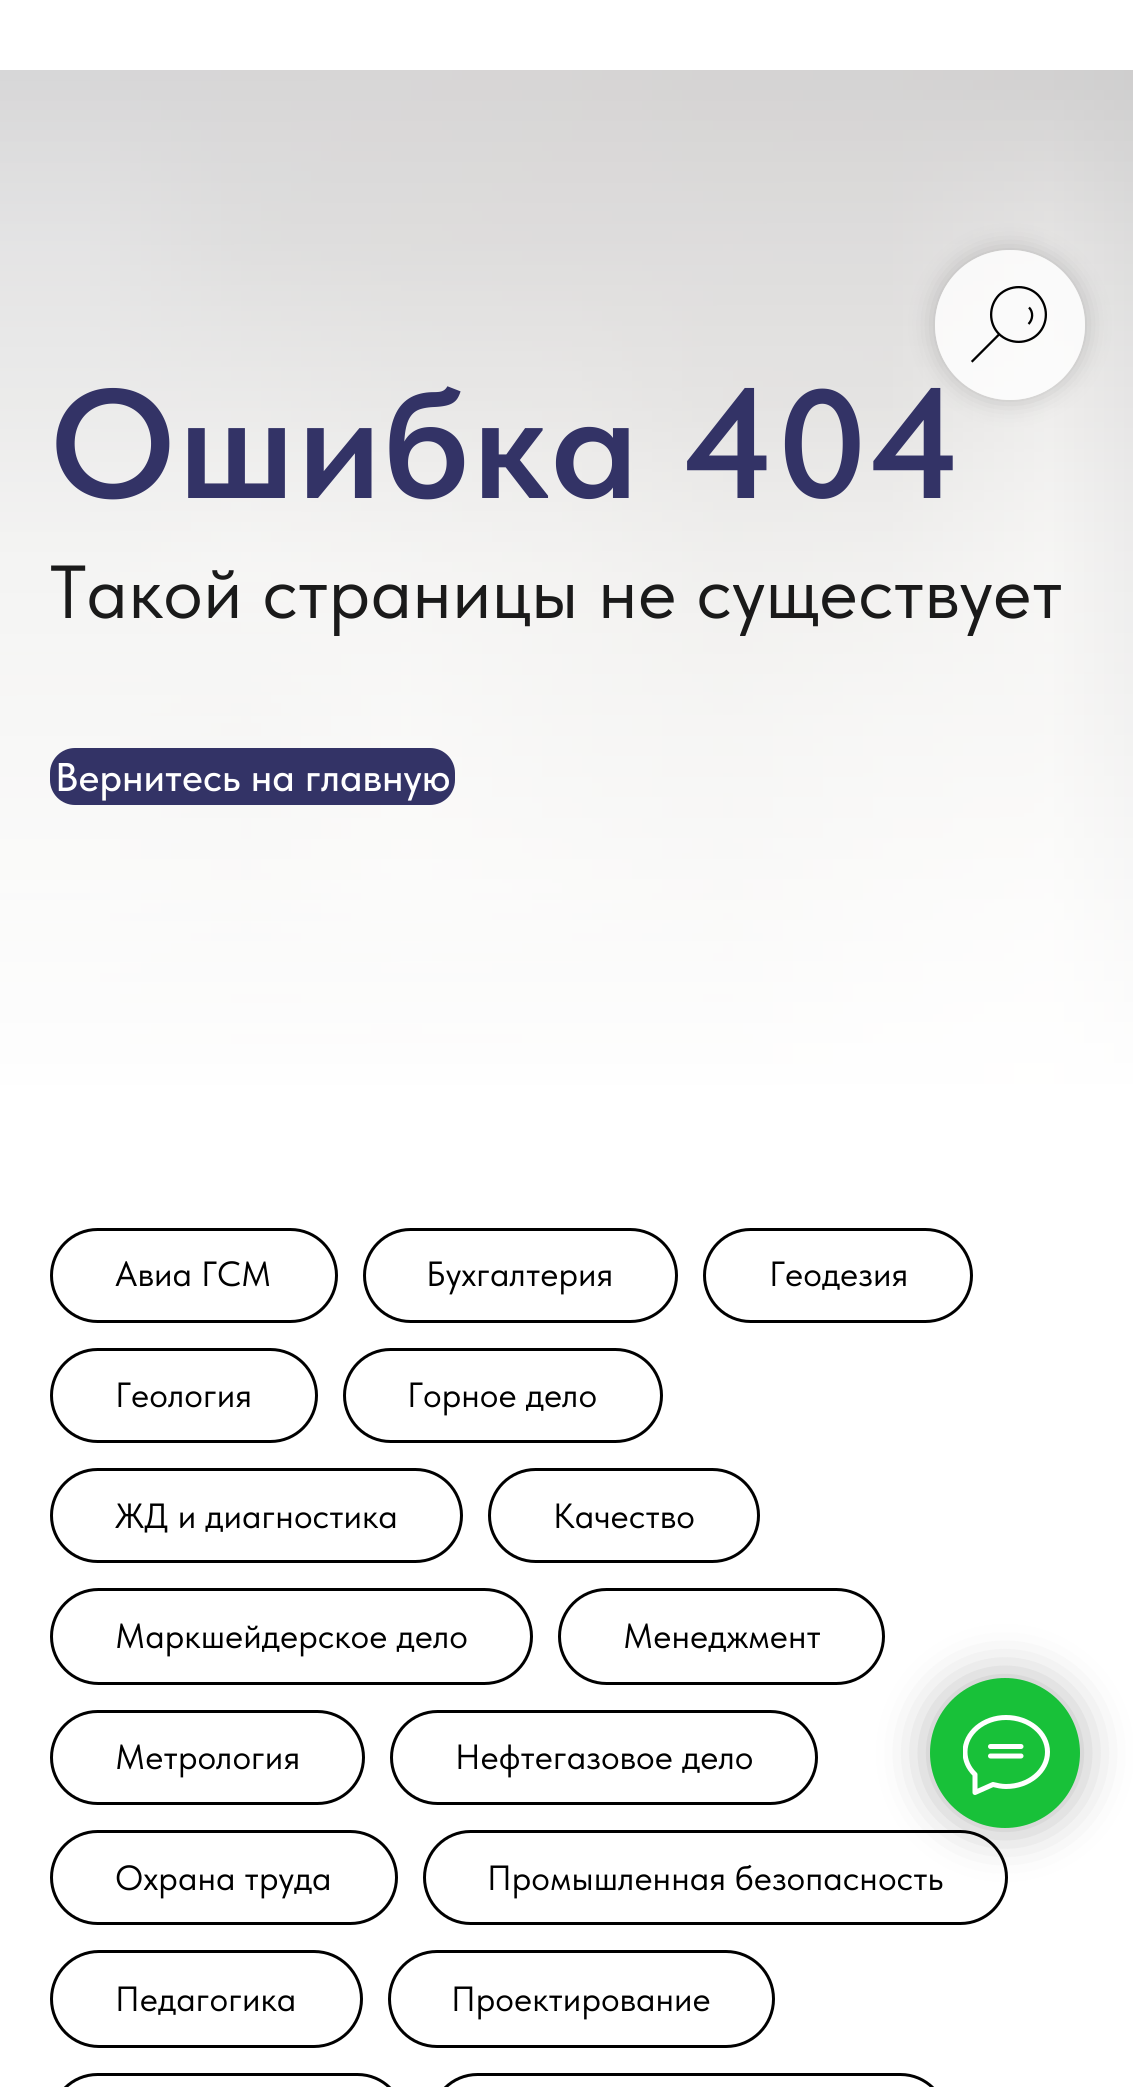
import math
import cairo


def write_spaced(ctx, x, y, s, letter, word):
	ctx.move_to(x, y)
	for ch in s:
		ctx.show_text(ch)
		ctx.rel_move_to(letter + word * (ch == ' '), 0)

def round_path(ctx, x, y, w, h, r):
	ctx.new_sub_path()
	for i, (u, v) in enumerate([(x + w - r, y + h - r), (x + r, y + h - r), (x + r, y + r), (x + w - r, y + r)]):
		ctx.arc(u, v, r, i * math.pi / 2, (i + 1) * math.pi / 2)
	ctx.close_path()

def blur_box(ctx, x, y, w, h, r, blur, alpha):
	ctx.push_group_with_content(cairo.CONTENT_ALPHA)
	ctx.set_operator(cairo.OPERATOR_SOURCE)
	for i in range(15, -16, -2):
		e = blur * i / 6
		if min(w, h) + 2 * e > 0:
			ctx.set_source_rgba(0, 0, 0, alpha * math.erfc((i - 1) / 8.5) / 2)
			round_path(ctx, x - e, y - e, w + 2 * e, h + 2 * e, max(0, min(r + e + blur * .6, min(w, h) / 2 + e)))
			ctx.fill()
	ctx.mask(ctx.pop_group())

def paste(ctx, path, x, y, w, h):
	ctx.save()
	ctx.set_source_surface(cairo.ImageSurface.create_from_png(path), x, y)
	ctx.rectangle(x, y, w, h)
	ctx.fill()
	ctx.restore()

def draw(ctx):
	ctx.set_source_rgb(1, 1, 1)
	ctx.paint()
	ctx.set_source_rgb(0, 0, 0)
	ctx.rectangle(1054, 70, 79, 1014)
	ctx.fill()
	paste(ctx, 'media/1.png', 0, 70, 1133, 1015)
	gradient = cairo.LinearGradient(567, 70, 568, 1115)
	gradient.add_color_stop_rgba(0, 1, 1, 1, 0.8)
	gradient.add_color_stop_rgba(1, 1, 1, 1, 1)
	ctx.set_source(gradient)
	ctx.rectangle(0, 70, 1133, 1015)
	ctx.fill()
	ctx.save()
	ctx.set_fill_rule(cairo.FILL_RULE_EVEN_ODD)
	ctx.new_path()
	ctx.move_to(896, 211)
	ctx.line_to(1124, 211)
	ctx.line_to(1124, 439)
	ctx.line_to(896, 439)
	ctx.close_path()
	ctx.move_to(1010, 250)
	ctx.curve_to(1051.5, 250, 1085, 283.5, 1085, 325)
	ctx.curve_to(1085, 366.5, 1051.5, 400, 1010, 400)
	ctx.curve_to(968.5, 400, 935, 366.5, 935, 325)
	ctx.curve_to(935, 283.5, 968.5, 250, 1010, 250)
	ctx.close_path()
	ctx.clip()
	ctx.set_source_rgb(0, 0, 0)
	blur_box(ctx, 935, 250, 150, 150, 75, 12.5, 0.2)
	ctx.restore()
	ctx.select_font_face('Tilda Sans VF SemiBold')
	ctx.set_font_size(155)
	ctx.set_source_rgb(0.2, 0.2, 0.4)
	write_spaced(ctx, 50, 498, 'Ошибка 404', 2.5, 0)
	ctx.set_source_rgba(1, 1, 1, 0.8)
	ctx.new_path()
	ctx.arc(1010, 325, 75, 0, 2 * math.pi)
	ctx.fill()
	ctx.new_path()
	ctx.move_to(972.5, 361)
	ctx.line_to(998.5, 335)
	ctx.set_source_rgb(0, 0, 0)
	ctx.set_line_width(2.3)
	ctx.set_line_cap(cairo.LINE_CAP_SQUARE)
	ctx.stroke()
	ctx.new_path()
	ctx.move_to(1038, 295)
	ctx.curve_to(1048.5, 306, 1048.5, 323.5, 1038, 334)
	ctx.curve_to(1027.5, 344.5, 1010, 344.5, 999, 334)
	ctx.curve_to(988.5, 323.5, 988.5, 306, 999, 295)
	ctx.curve_to(1010, 284.5, 1027.5, 284.5, 1038, 295)
	ctx.close_path()
	ctx.move_to(1029, 307.5)
	ctx.curve_to(1033.5, 312, 1033, 319.5, 1028.5, 324)
	ctx.set_line_cap(cairo.LINE_CAP_BUTT)
	ctx.stroke()
	round_path(ctx, 559.5, 1589.5, 324, 94, 47)
	ctx.set_line_width(3)
	ctx.stroke()
	round_path(ctx, 424.5, 1831.5, 582, 92, 46)
	ctx.stroke()
	ctx.set_source_rgb(0, 0, 0)
	blur_box(ctx, 930, 1678, 150, 150, 75, 25, 0.3)
	ctx.set_source_rgb(0.094, 0.757, 0.224)
	ctx.arc(1005, 1753, 75, 0, 2 * math.pi)
	ctx.fill()
	ctx.save()
	ctx.rectangle(963, 1715, 87, 80)
	ctx.clip()
	ctx.new_path()
	ctx.move_to(990.5, 1746.5)
	ctx.line_to(1021, 1746.5)
	ctx.move_to(990.5, 1756)
	ctx.line_to(1021, 1756)
	ctx.move_to(974.5, 1774)
	ctx.curve_to(968.5, 1768, 965, 1760.5, 965, 1752)
	ctx.curve_to(965, 1733, 983.5, 1717.5, 1006, 1717.5)
	ctx.curve_to(1029, 1717.5, 1047.5, 1733, 1047.5, 1752)
	ctx.curve_to(1047.5, 1771, 1029, 1786.5, 1006, 1786.5)
	ctx.curve_to(1001.5, 1786.5, 997, 1785.5, 993, 1784.5)
	ctx.line_to(975, 1792.5)
	ctx.line_to(975, 1774.5)
	ctx.close_path()
	ctx.set_source_rgb(1, 1, 1)
	ctx.set_line_width(5)
	ctx.set_line_cap(cairo.LINE_CAP_ROUND)
	ctx.set_line_join(cairo.LINE_JOIN_ROUND)
	ctx.stroke()
	ctx.restore()
	ctx.select_font_face('Tilda Sans VF')
	ctx.set_font_size(75)
	ctx.set_source_rgb(0.102, 0.102, 0.102)
	ctx.move_to(50, 618)
	ctx.show_text('Такой страницы не существует')
	ctx.set_source_rgb(0.2, 0.2, 0.4)
	round_path(ctx, 50, 748, 405, 57, 25)
	ctx.fill()
	ctx.select_font_face('Tilda Sans VF Medium')
	ctx.set_font_size(40)
	ctx.set_source_rgb(1, 1, 1)
	ctx.move_to(55, 791)
	ctx.show_text('Вернитесь на главную')
	round_path(ctx, 51.5, 1229.5, 285, 92, 46)
	ctx.set_source_rgb(0, 0, 0)
	ctx.stroke()
	ctx.select_font_face('Tilda Sans VF')
	ctx.set_font_size(35)
	ctx.move_to(115, 1286)
	ctx.show_text('Авиа ГСМ')
	round_path(ctx, 364.5, 1229.5, 312, 92, 46)
	ctx.stroke()
	ctx.move_to(426, 1286)
	ctx.show_text('Бухгалтерия')
	round_path(ctx, 704.5, 1229.5, 267, 92, 46)
	ctx.stroke()
	ctx.move_to(769, 1286)
	ctx.show_text('Геодезия')
	round_path(ctx, 51.5, 1349.5, 265, 92, 46)
	ctx.stroke()
	ctx.move_to(115, 1407)
	ctx.show_text('Геология')
	round_path(ctx, 344.5, 1349.5, 317, 92, 46)
	ctx.stroke()
	ctx.move_to(407, 1407)
	ctx.show_text('Горное дело')
	round_path(ctx, 51.5, 1469.5, 410, 92, 46)
	ctx.stroke()
	ctx.move_to(115, 1528)
	ctx.show_text('ЖД и диагностика')
	round_path(ctx, 489.5, 1469.5, 269, 92, 46)
	ctx.stroke()
	ctx.move_to(553, 1528)
	ctx.show_text('Качество')
	round_path(ctx, 51.5, 1589.5, 480, 94, 47)
	ctx.stroke()
	ctx.move_to(115, 1648)
	ctx.show_text('Маркшейдерское дело')
	ctx.move_to(623, 1648)
	ctx.show_text('Менеджмент')
	round_path(ctx, 51.5, 1711.5, 312, 92, 46)
	ctx.stroke()
	ctx.move_to(115, 1769)
	ctx.show_text('Метрология')
	round_path(ctx, 391.5, 1711.5, 425, 92, 46)
	ctx.stroke()
	ctx.move_to(455, 1769)
	ctx.show_text('Нефтегазовое дело')
	round_path(ctx, 51.5, 1831.5, 345, 92, 46)
	ctx.stroke()
	ctx.move_to(115, 1890)
	ctx.show_text('Охрана труда')
	ctx.move_to(487, 1890)
	ctx.show_text('Промышленная безопасность')
	round_path(ctx, 51.5, 1951.5, 310, 95, 47.5)
	ctx.stroke()
	ctx.move_to(115, 2011)
	ctx.show_text('Педагогика')
	round_path(ctx, 389.5, 1951.5, 384, 95, 47.5)
	ctx.stroke()
	ctx.move_to(451, 2011)
	ctx.show_text('Проектирование')
	round_path(ctx, 51.5, 2074.5, 352, 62, 46)
	ctx.stroke()
	round_path(ctx, 431.5, 2074.5, 515, 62, 46)
	ctx.stroke()


surface = cairo.ImageSurface(cairo.FORMAT_RGB24, 1133, 2087)
ctx = cairo.Context(surface)
options = cairo.FontOptions()
options.set_hint_metrics(cairo.HINT_METRICS_OFF)
options.set_hint_style(cairo.HINT_STYLE_NONE)
ctx.set_font_options(options)
ctx.set_miter_limit(4)
draw(ctx)
surface.write_to_png('image.png')
